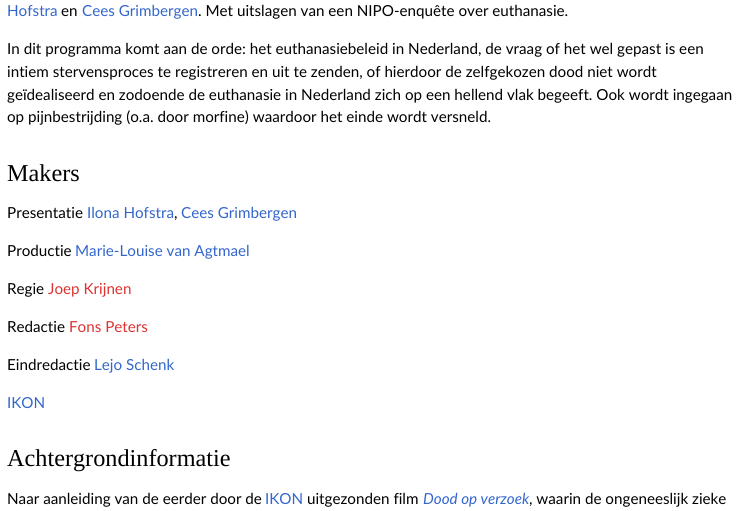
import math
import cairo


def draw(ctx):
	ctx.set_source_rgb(1, 1, 1)
	ctx.paint()
	ctx.select_font_face('Lato')
	ctx.set_font_size(15.2)
	ctx.set_source_rgb(0.2, 0.4, 0.8)
	ctx.move_to(7, 16)
	ctx.show_text('Hofstra')
	ctx.set_source_rgb(0, 0, 0)
	ctx.move_to(61, 16)
	ctx.show_text('en')
	ctx.set_source_rgb(0.2, 0.4, 0.8)
	ctx.move_to(82, 16)
	ctx.show_text('Cees Grimbergen')
	ctx.set_source_rgb(0, 0, 0)
	for x, y, s in [
		(198, 16, '. Met uitslagen van een NIPO-enquête over euthanasie.'),
		(7, 54, 'In dit programma komt aan de orde: het euthanasiebeleid in Nederland, de vraag of het wel gepast is een'),
		(7, 77, 'intiem stervensproces te registreren en uit te zenden, of hierdoor de zelfgekozen dood niet wordt'),
		(7, 100, 'geïdealiseerd en zodoende de euthanasie in Nederland zich op een hellend vlak begeeft. Ook wordt ingegaan'),
		(7, 122, 'op pijnbestrijding (o.a. door morfine) waardoor het einde wordt versneld.'),
	]:
		ctx.move_to(x, y)
		ctx.show_text(s)
	ctx.select_font_face('Liberation Serif')
	ctx.set_font_size(24.25)
	ctx.move_to(7, 181)
	ctx.show_text('Makers')
	ctx.select_font_face('Lato')
	ctx.set_font_size(15.2)
	ctx.move_to(7, 218)
	ctx.show_text('Presentatie')
	ctx.set_source_rgb(0.2, 0.4, 0.8)
	ctx.move_to(87, 218)
	ctx.show_text('Ilona Hofstra')
	ctx.set_source_rgb(0, 0, 0)
	ctx.move_to(174, 218)
	ctx.show_text(',')
	ctx.set_source_rgb(0.2, 0.4, 0.8)
	ctx.move_to(181, 218)
	ctx.show_text('Cees Grimbergen')
	ctx.set_source_rgb(0, 0, 0)
	ctx.move_to(7, 256)
	ctx.show_text('Productie')
	ctx.set_source_rgb(0.2, 0.4, 0.8)
	ctx.move_to(75, 256)
	ctx.show_text('Marie-Louise van Agtmael')
	ctx.set_source_rgb(0, 0, 0)
	ctx.move_to(7, 294)
	ctx.show_text('Regie')
	ctx.set_source_rgb(0.867, 0.2, 0.2)
	ctx.move_to(48, 294)
	ctx.show_text('Joep Krijnen')
	ctx.set_source_rgb(0, 0, 0)
	ctx.move_to(7, 332)
	ctx.show_text('Redactie')
	ctx.set_source_rgb(0.867, 0.2, 0.2)
	ctx.move_to(69, 332)
	ctx.show_text('Fons Peters')
	ctx.set_source_rgb(0, 0, 0)
	ctx.move_to(7, 370)
	ctx.show_text('Eindredactie')
	ctx.set_source_rgb(0.2, 0.4, 0.8)
	ctx.move_to(94, 370)
	ctx.show_text('Lejo Schenk')
	ctx.move_to(7, 408)
	ctx.show_text('IKON')
	ctx.select_font_face('Liberation Serif')
	ctx.set_font_size(24.25)
	ctx.set_source_rgb(0, 0, 0)
	ctx.move_to(7, 466)
	ctx.show_text('Achtergrondinformatie')
	ctx.select_font_face('Lato')
	ctx.set_font_size(15.2)
	ctx.move_to(7, 504)
	ctx.show_text('Naar aanleiding van de eerder door de')
	ctx.set_source_rgb(0.2, 0.4, 0.8)
	ctx.move_to(265, 504)
	ctx.show_text('IKON')
	ctx.set_source_rgb(0, 0, 0)
	ctx.move_to(307, 504)
	ctx.show_text('uitgezonden film')
	ctx.select_font_face('Lato', cairo.FONT_SLANT_ITALIC)
	ctx.set_source_rgb(0.2, 0.4, 0.8)
	ctx.move_to(423, 504)
	ctx.show_text('Dood op verzoek')
	ctx.select_font_face('Lato')
	ctx.set_source_rgb(0, 0, 0)
	ctx.move_to(529, 504)
	ctx.show_text(', waarin de ongeneeslijk zieke')


surface = cairo.ImageSurface(cairo.FORMAT_RGB24, 739, 511)
ctx = cairo.Context(surface)
options = cairo.FontOptions()
options.set_hint_metrics(cairo.HINT_METRICS_OFF)
options.set_hint_style(cairo.HINT_STYLE_NONE)
ctx.set_font_options(options)
ctx.set_miter_limit(4)
draw(ctx)
surface.write_to_png('image.png')
